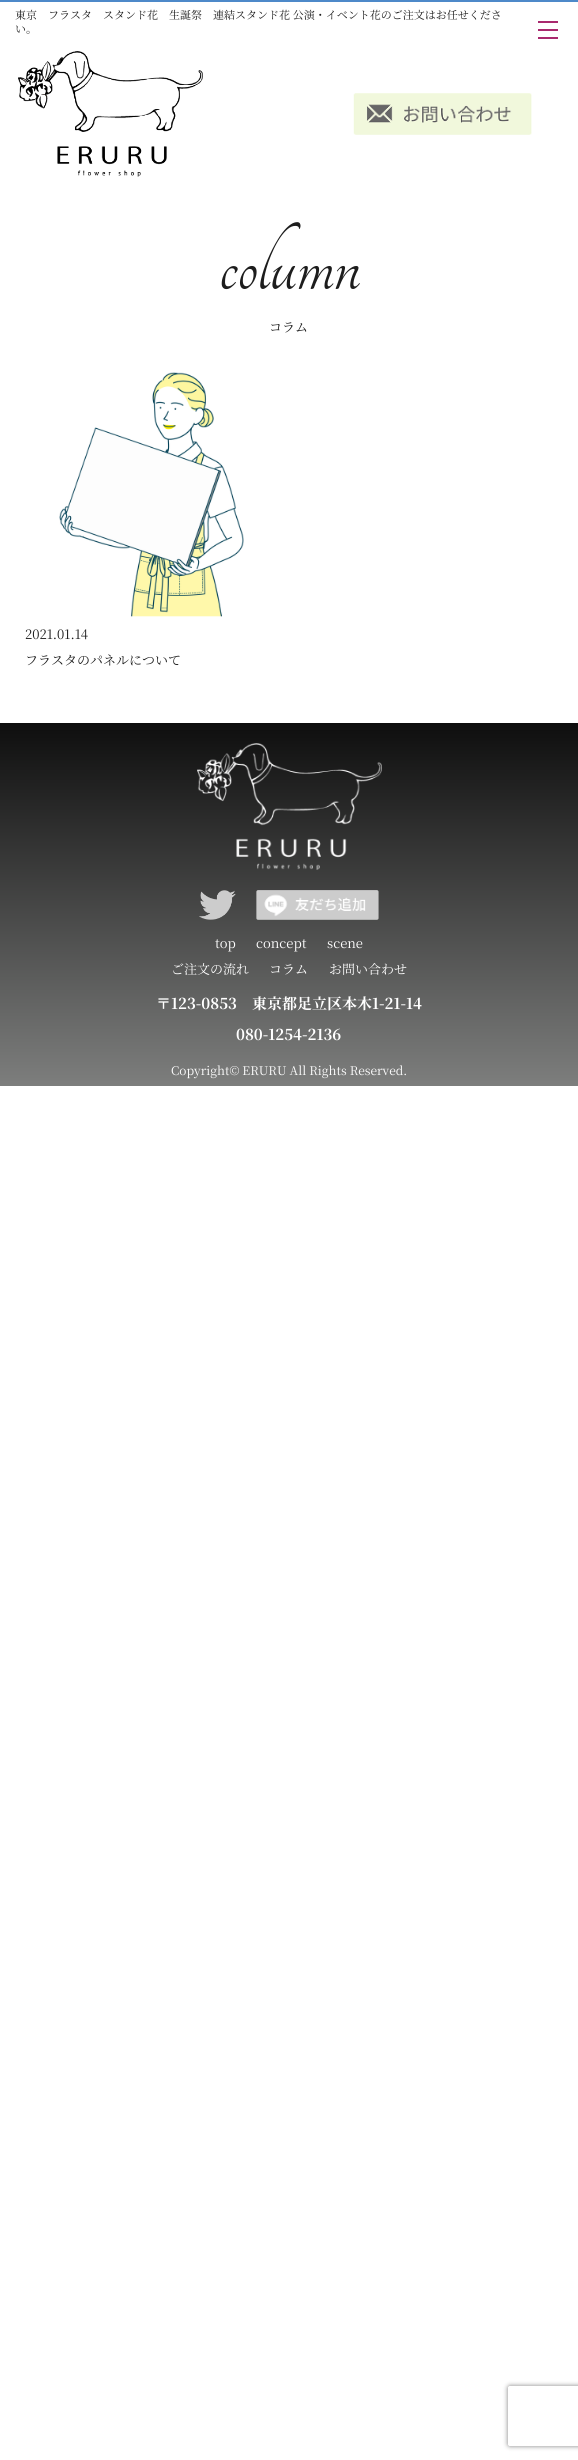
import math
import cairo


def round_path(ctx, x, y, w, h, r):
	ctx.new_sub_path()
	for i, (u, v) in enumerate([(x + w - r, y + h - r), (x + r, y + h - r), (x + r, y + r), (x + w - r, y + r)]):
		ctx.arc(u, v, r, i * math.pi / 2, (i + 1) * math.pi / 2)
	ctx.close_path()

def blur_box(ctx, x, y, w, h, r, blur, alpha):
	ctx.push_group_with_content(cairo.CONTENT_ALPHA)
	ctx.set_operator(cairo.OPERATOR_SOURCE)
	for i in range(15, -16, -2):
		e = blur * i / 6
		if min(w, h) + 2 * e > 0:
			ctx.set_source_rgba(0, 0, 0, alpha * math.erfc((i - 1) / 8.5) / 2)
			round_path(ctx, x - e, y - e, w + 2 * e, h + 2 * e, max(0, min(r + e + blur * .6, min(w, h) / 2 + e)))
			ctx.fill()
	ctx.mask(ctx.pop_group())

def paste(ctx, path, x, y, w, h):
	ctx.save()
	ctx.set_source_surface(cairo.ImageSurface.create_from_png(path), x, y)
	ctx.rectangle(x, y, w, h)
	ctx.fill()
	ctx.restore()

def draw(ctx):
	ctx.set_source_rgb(1, 1, 1)
	ctx.paint()
	ctx.set_source_rgb(0.302, 0.537, 0.788)
	ctx.rectangle(0, 0, 578, 2)
	ctx.fill()
	ctx.select_font_face('Noto Serif JP')
	ctx.set_font_size(11)
	ctx.set_source_rgb(0.114, 0.114, 0.114)
	ctx.move_to(15, 19)
	ctx.show_text('東京　フラスタ　スタンド花　生誕祭　連結スタンド花 公演・イベント花のご注文はお任せくださ')
	ctx.move_to(15, 33)
	ctx.show_text('い。')
	paste(ctx, 'media/1.png', 18, 51, 185, 126)
	paste(ctx, 'media/2.png', 353, 93, 179, 42)
	ctx.select_font_face('Tangerine')
	ctx.set_font_size(90)
	ctx.move_to(219, 289)
	ctx.show_text('column')
	ctx.select_font_face('Noto Serif JP')
	ctx.set_font_size(13)
	ctx.move_to(269, 332)
	ctx.show_text('コラム')
	paste(ctx, 'media/3.png', 59, 372, 185, 245)
	ctx.move_to(25, 639)
	ctx.show_text('2021.01.14')
	ctx.move_to(25, 665)
	ctx.show_text('フラスタのパネルについて')
	gradient = cairo.LinearGradient(289, 723, 289, 1086)
	gradient.add_color_stop_rgba(0, 0.055, 0.055, 0.055, 1)
	gradient.add_color_stop_rgba(1, 0.49, 0.494, 0.49, 1)
	ctx.set_source(gradient)
	ctx.rectangle(0, 723, 578, 363)
	ctx.fill()
	paste(ctx, 'media/4.png', 197, 743, 185, 127)
	paste(ctx, 'media/5.png', 199, 890, 37, 30)
	paste(ctx, 'media/6.png', 256, 890, 123, 30)
	ctx.set_source_rgb(1, 1, 1)
	for x, y, s in [
		(215, 948, 'top'),
		(256, 948, 'concept'),
		(327, 948, 'scene'),
		(171, 974, 'ご注文の流れ'),
		(269, 974, 'コラム'),
		(329, 974, 'お問い合わせ'),
	]:
		ctx.move_to(x, y)
		ctx.show_text(s)
	ctx.select_font_face('Noto Serif JP', cairo.FONT_SLANT_NORMAL, cairo.FONT_WEIGHT_BOLD)
	ctx.set_font_size(15)
	ctx.move_to(156, 1009)
	ctx.show_text('〒123-0853　東京都足立区本木1-21-14')
	ctx.move_to(236, 1040)
	ctx.show_text('080-1254-2136')
	ctx.select_font_face('Noto Serif JP')
	ctx.set_font_size(12)
	ctx.move_to(171, 1075)
	ctx.show_text('Copyright© ERURU All Rights Reserved.')
	ctx.set_source_rgb(0.663, 0.161, 0.431)
	ctx.rectangle(538, 29, 20, 2)
	ctx.rectangle(538, 21, 20, 2)
	ctx.rectangle(538, 37, 20, 2)
	ctx.fill()
	ctx.save()
	ctx.set_fill_rule(cairo.FILL_RULE_EVEN_ODD)
	ctx.new_path()
	ctx.move_to(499, 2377)
	ctx.line_to(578, 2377)
	ctx.line_to(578, 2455)
	ctx.line_to(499, 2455)
	ctx.close_path()
	ctx.move_to(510, 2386)
	ctx.line_to(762, 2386)
	ctx.curve_to(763, 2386, 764, 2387, 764, 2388)
	ctx.line_to(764, 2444)
	ctx.curve_to(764, 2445, 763, 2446, 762, 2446)
	ctx.line_to(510, 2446)
	ctx.curve_to(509, 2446, 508, 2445, 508, 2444)
	ctx.line_to(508, 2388)
	ctx.curve_to(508, 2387, 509, 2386, 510, 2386)
	ctx.close_path()
	ctx.clip()
	ctx.set_source_rgb(0.502, 0.502, 0.502)
	blur_box(ctx, 508, 2386, 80, 60, 2, 2.5, 1)
	ctx.restore()


surface = cairo.ImageSurface(cairo.FORMAT_RGB24, 578, 2460)
ctx = cairo.Context(surface)
options = cairo.FontOptions()
options.set_hint_metrics(cairo.HINT_METRICS_OFF)
options.set_hint_style(cairo.HINT_STYLE_NONE)
ctx.set_font_options(options)
ctx.set_miter_limit(4)
draw(ctx)
surface.write_to_png('image.png')
